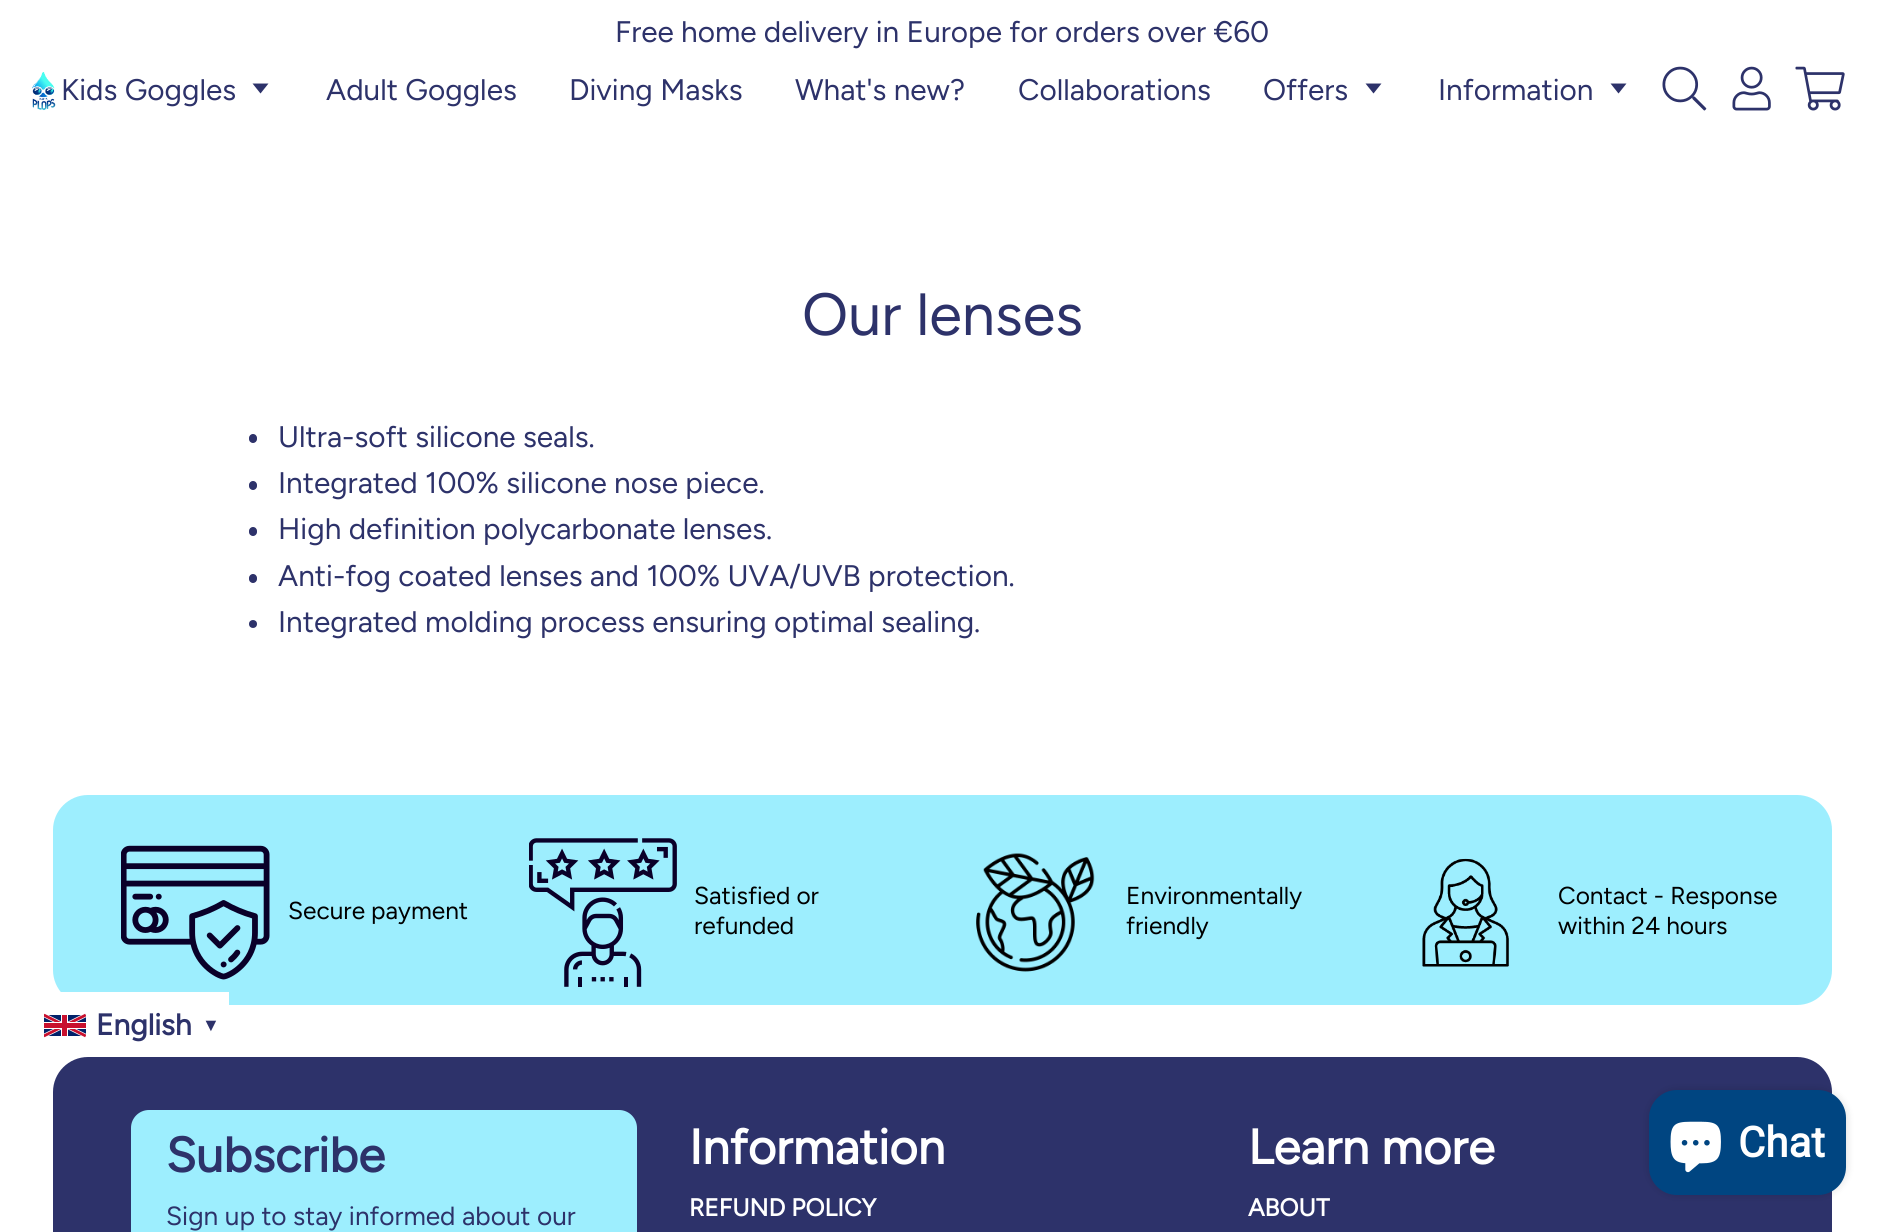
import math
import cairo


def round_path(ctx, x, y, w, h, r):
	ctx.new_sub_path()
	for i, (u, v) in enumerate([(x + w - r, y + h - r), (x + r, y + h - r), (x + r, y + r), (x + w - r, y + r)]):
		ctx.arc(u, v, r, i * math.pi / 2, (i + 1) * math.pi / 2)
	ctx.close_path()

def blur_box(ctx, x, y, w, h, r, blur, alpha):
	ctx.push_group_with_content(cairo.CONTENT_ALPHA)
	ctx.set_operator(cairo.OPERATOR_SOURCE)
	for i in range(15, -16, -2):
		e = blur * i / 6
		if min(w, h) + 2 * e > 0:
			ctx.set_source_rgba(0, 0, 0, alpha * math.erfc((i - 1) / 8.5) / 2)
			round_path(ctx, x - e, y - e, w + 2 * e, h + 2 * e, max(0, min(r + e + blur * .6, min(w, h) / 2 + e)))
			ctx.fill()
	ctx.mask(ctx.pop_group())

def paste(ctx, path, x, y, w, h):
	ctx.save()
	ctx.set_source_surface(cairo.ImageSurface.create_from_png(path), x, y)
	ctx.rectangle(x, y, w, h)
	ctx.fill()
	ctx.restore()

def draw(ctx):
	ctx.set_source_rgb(1, 1, 1)
	ctx.paint()
	ctx.select_font_face('Figtree')
	ctx.set_font_size(29.75)
	ctx.set_source_rgb(0.176, 0.196, 0.416)
	ctx.move_to(615, 42)
	ctx.show_text('Free home delivery in Europe for orders over €60')
	paste(ctx, 'media/1.png', 32, 72, 24, 39)
	ctx.move_to(61, 100)
	ctx.show_text('Kids Goggles')
	ctx.new_path()
	ctx.move_to(252.5, 83.5)
	ctx.line_to(260.5, 93.5)
	ctx.line_to(268.5, 83.5)
	ctx.close_path()
	ctx.fill()
	for x, y, s in [
		(326, 100, 'Adult Goggles'),
		(569, 100, 'Diving Masks'),
		(795, 100, 'What\'s new?'),
		(1018, 100, 'Collaborations'),
		(1263, 100, 'Offers'),
	]:
		ctx.move_to(x, y)
		ctx.show_text(s)
	ctx.new_path()
	ctx.move_to(1365.5, 83.5)
	ctx.line_to(1373.5, 93.5)
	ctx.line_to(1381.5, 83.5)
	ctx.close_path()
	ctx.fill()
	ctx.move_to(1438, 100)
	ctx.show_text('Information')
	ctx.new_path()
	ctx.move_to(1610.5, 83.5)
	ctx.line_to(1618.5, 93.5)
	ctx.line_to(1626.5, 83.5)
	ctx.close_path()
	ctx.fill()
	paste(ctx, 'media/2.png', 1662, 66, 45, 45)
	paste(ctx, 'media/3.png', 1732, 66, 39, 45)
	paste(ctx, 'media/4.png', 1795, 66, 50, 45)
	ctx.set_font_size(59.5)
	ctx.move_to(802, 335)
	ctx.show_text('Our lenses')
	round_path(ctx, 249, 434, 8, 9, 4)
	ctx.fill()
	ctx.set_font_size(29.75)
	ctx.move_to(278, 447)
	ctx.show_text('Ultra-soft silicone seals.')
	round_path(ctx, 249, 481, 8, 9, 4)
	ctx.fill()
	ctx.move_to(278, 493)
	ctx.show_text('Integrated 100% silicone nose piece.')
	round_path(ctx, 249, 527, 8, 9, 4)
	ctx.fill()
	ctx.move_to(278, 539)
	ctx.show_text('High definition polycarbonate lenses.')
	round_path(ctx, 249, 574, 8, 9, 4)
	ctx.fill()
	ctx.move_to(278, 586)
	ctx.show_text('Anti-fog coated lenses and 100% UVA/UVB protection.')
	ctx.new_path()
	ctx.arc(253, 624, 4, 0, 2 * math.pi)
	ctx.fill()
	ctx.move_to(278, 632)
	ctx.show_text('Integrated molding process ensuring optimal sealing.')
	ctx.set_source_rgb(0.616, 0.933, 0.996)
	round_path(ctx, 53, 795, 1779, 210, 35)
	ctx.fill()
	paste(ctx, 'media/5.png', 121, 845, 149, 135)
	ctx.set_font_size(24.5)
	ctx.set_source_rgb(0, 0, 0)
	ctx.move_to(288, 919)
	ctx.show_text('Secure payment')
	paste(ctx, 'media/6.png', 529, 838, 148, 149)
	ctx.move_to(694, 904)
	ctx.show_text('Satisfied or')
	ctx.move_to(694, 934)
	ctx.show_text('refunded')
	paste(ctx, 'media/7.png', 976, 853, 119, 119)
	ctx.move_to(1126, 904)
	ctx.show_text('Environmentally')
	ctx.move_to(1126, 934)
	ctx.show_text('friendly')
	paste(ctx, 'media/8.png', 1422, 858, 87, 109)
	ctx.move_to(1558, 904)
	ctx.show_text('Contact - Response')
	ctx.move_to(1558, 934)
	ctx.show_text('within 24 hours')
	ctx.set_source_rgb(1, 1, 1)
	ctx.rectangle(60, 992, 169, 13)
	ctx.fill()
	paste(ctx, 'media/9.png', 44, 1013, 42, 25)
	ctx.select_font_face('Figtree', cairo.FONT_SLANT_NORMAL, cairo.FONT_WEIGHT_BOLD)
	ctx.set_font_size(29.75)
	ctx.set_source_rgb(0.176, 0.196, 0.416)
	ctx.move_to(96, 1035)
	ctx.show_text('English')
	ctx.select_font_face('Liberation Sans', cairo.FONT_SLANT_NORMAL, cairo.FONT_WEIGHT_BOLD)
	ctx.set_font_size(18)
	ctx.move_to(202, 1031)
	ctx.show_text('▼')
	round_path(ctx, 53, 1057, 1779, 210, 35)
	ctx.fill()
	ctx.set_source_rgb(0.616, 0.933, 0.996)
	round_path(ctx, 131, 1110, 506, 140, 18)
	ctx.fill()
	ctx.select_font_face('Figtree', cairo.FONT_SLANT_NORMAL, cairo.FONT_WEIGHT_BOLD)
	ctx.set_font_size(49)
	ctx.set_source_rgb(0.176, 0.196, 0.416)
	ctx.move_to(166, 1172)
	ctx.show_text('Subscribe')
	ctx.select_font_face('Figtree')
	ctx.set_font_size(26.25)
	ctx.move_to(166, 1225)
	ctx.show_text('Sign up to stay informed about our')
	ctx.select_font_face('Figtree', cairo.FONT_SLANT_NORMAL, cairo.FONT_WEIGHT_BOLD)
	ctx.set_font_size(49)
	ctx.set_source_rgb(1, 1, 1)
	ctx.move_to(689, 1164)
	ctx.show_text('Information')
	ctx.set_font_size(24.5)
	ctx.move_to(689, 1216)
	ctx.show_text('REFUND POLICY')
	ctx.set_font_size(49)
	ctx.move_to(1248, 1164)
	ctx.show_text('Learn more')
	ctx.set_font_size(24.5)
	ctx.move_to(1248, 1216)
	ctx.show_text('ABOUT')
	ctx.set_source_rgb(0, 0, 0)
	blur_box(ctx, 1649, 1090, 197, 105, 28, 4.5, 0.15)
	ctx.set_source_rgb(0, 0.271, 0.506)
	round_path(ctx, 1649, 1090, 197, 105, 28)
	ctx.fill()
	paste(ctx, 'media/10.png', 1670, 1121, 51, 52)
	ctx.select_font_face('Roboto', cairo.FONT_SLANT_NORMAL, cairo.FONT_WEIGHT_BOLD)
	ctx.set_font_size(42)
	ctx.set_source_rgb(1, 1, 1)
	ctx.move_to(1738, 1157)
	ctx.show_text('Chat')


surface = cairo.ImageSurface(cairo.FORMAT_RGB24, 1884, 1232)
ctx = cairo.Context(surface)
options = cairo.FontOptions()
options.set_hint_metrics(cairo.HINT_METRICS_OFF)
options.set_hint_style(cairo.HINT_STYLE_NONE)
ctx.set_font_options(options)
ctx.set_miter_limit(4)
draw(ctx)
surface.write_to_png('image.png')
